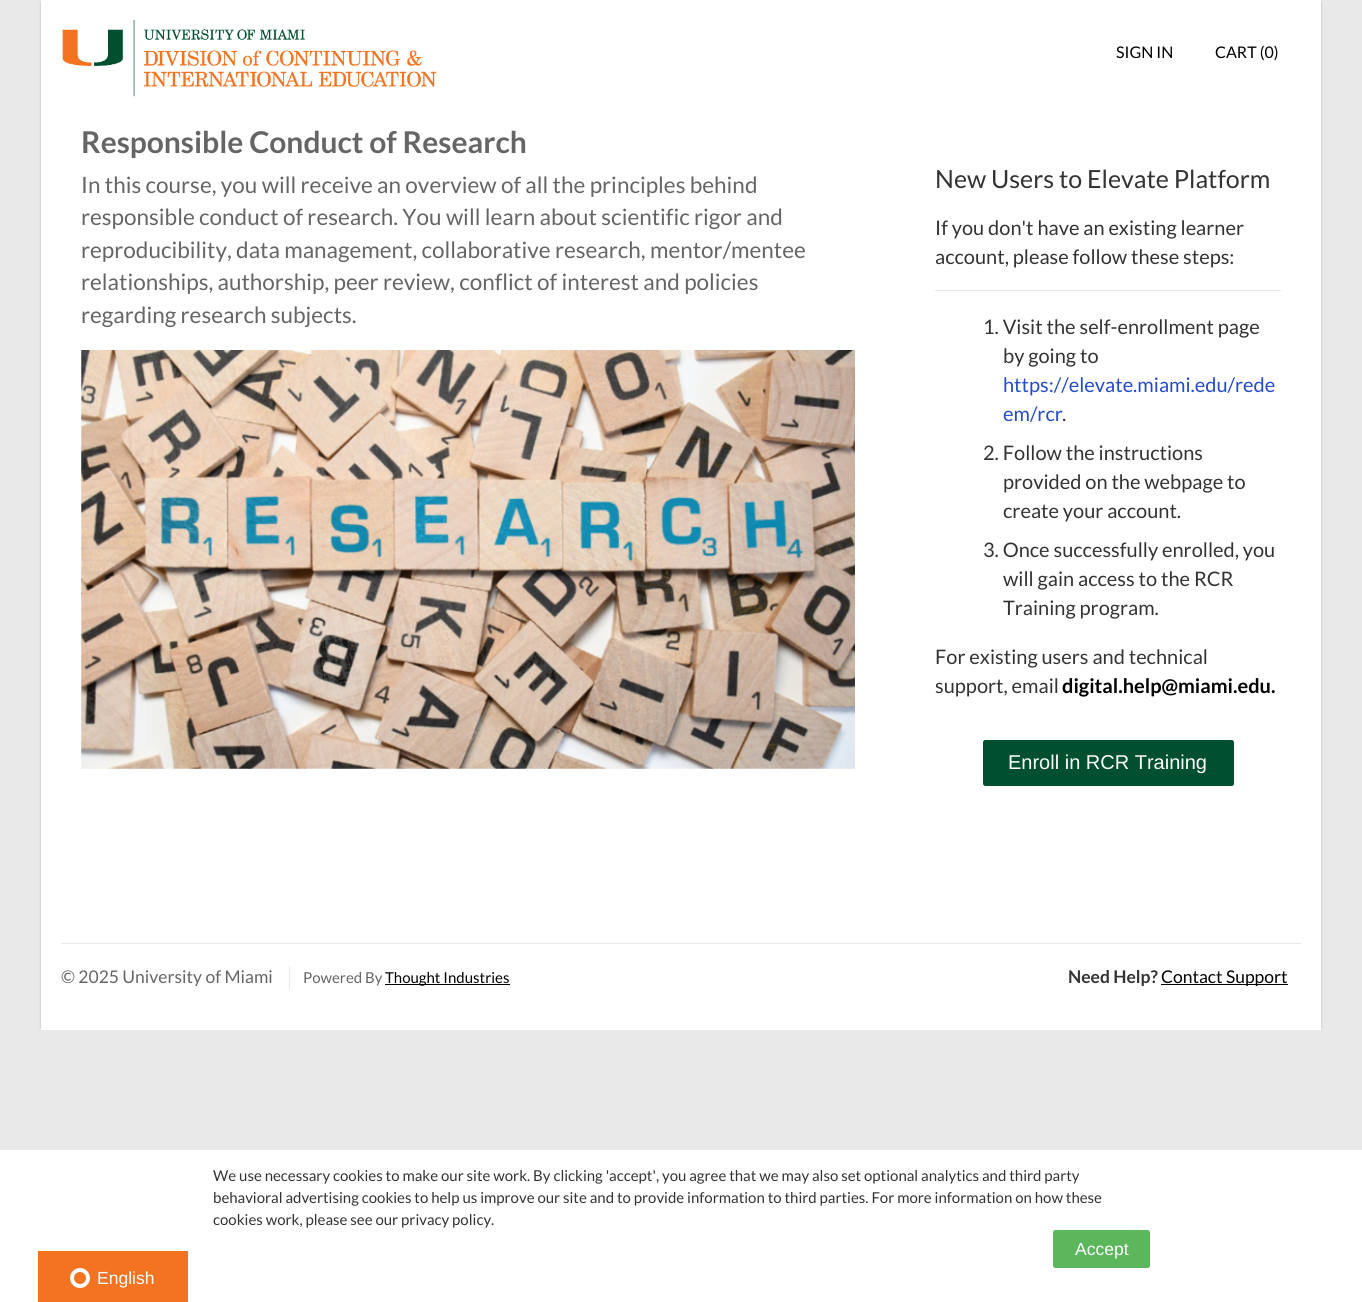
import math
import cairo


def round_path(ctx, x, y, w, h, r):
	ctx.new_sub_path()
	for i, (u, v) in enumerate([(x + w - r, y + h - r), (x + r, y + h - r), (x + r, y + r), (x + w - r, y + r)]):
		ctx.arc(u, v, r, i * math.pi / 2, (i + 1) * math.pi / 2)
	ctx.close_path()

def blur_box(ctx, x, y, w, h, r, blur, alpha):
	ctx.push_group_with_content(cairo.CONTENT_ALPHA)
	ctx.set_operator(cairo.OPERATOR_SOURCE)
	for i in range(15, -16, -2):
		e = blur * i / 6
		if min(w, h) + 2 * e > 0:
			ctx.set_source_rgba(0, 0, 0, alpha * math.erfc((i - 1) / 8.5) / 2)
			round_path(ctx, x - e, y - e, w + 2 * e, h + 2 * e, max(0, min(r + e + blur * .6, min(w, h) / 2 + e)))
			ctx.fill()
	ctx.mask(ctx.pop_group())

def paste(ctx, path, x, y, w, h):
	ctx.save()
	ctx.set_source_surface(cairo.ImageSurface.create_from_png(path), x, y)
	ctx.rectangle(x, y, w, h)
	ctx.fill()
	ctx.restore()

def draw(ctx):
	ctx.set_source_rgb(0.914, 0.914, 0.914)
	ctx.paint()
	ctx.set_source_rgb(0, 0, 0)
	blur_box(ctx, 46, 3, 1275, 1025, 0, 1, 0.25)
	blur_box(ctx, 41, 3, 1275, 1025, 0, 1, 0.25)
	ctx.set_source_rgb(1, 1, 1)
	ctx.rectangle(41, 0, 1280, 1030)
	ctx.fill()
	paste(ctx, 'media/1.png', 62, 20, 375, 77)
	ctx.select_font_face('Lato')
	ctx.set_font_size(16)
	ctx.set_source_rgb(0, 0, 0)
	ctx.move_to(1116, 58)
	ctx.show_text('SIGN IN')
	ctx.move_to(1215, 58)
	ctx.show_text('CART (0)')
	ctx.select_font_face('Lato', cairo.FONT_SLANT_NORMAL, cairo.FONT_WEIGHT_BOLD)
	ctx.set_font_size(30)
	ctx.set_source_rgb(0.396, 0.396, 0.396)
	ctx.move_to(81, 153)
	ctx.show_text('Responsible Conduct of Research')
	ctx.select_font_face('Lato')
	ctx.set_font_size(22.5)
	for x, y, s in [
		(81, 193, 'In this course, you will receive an overview of all the principles behind'),
		(81, 225, 'responsible conduct of research. You will learn about scientific rigor and'),
		(81, 258, 'reproducibility, data management, collaborative research, mentor/mentee'),
		(81, 290, 'relationships, authorship, peer review, conflict of interest and policies'),
		(81, 323, 'regarding research subjects.'),
	]:
		ctx.move_to(x, y)
		ctx.show_text(s)
	paste(ctx, 'media/2.png', 81, 350, 774, 419)
	ctx.set_font_size(25)
	ctx.set_source_rgb(0.2, 0.2, 0.2)
	ctx.move_to(935, 188)
	ctx.show_text('New Users to Elevate Platform')
	ctx.set_font_size(20)
	ctx.move_to(935, 235)
	ctx.show_text('If you don\'t have an existing learner')
	ctx.move_to(935, 264)
	ctx.show_text('account, please follow these steps:')
	ctx.set_source_rgb(0.914, 0.914, 0.914)
	ctx.rectangle(935, 290, 346, 1)
	ctx.fill()
	ctx.set_source_rgb(0.2, 0.2, 0.2)
	ctx.move_to(983, 334)
	ctx.show_text('1. Visit the self-enrollment page')
	ctx.move_to(1003, 363)
	ctx.show_text('by going to')
	ctx.set_source_rgb(0.141, 0.294, 0.788)
	ctx.move_to(1003, 392)
	ctx.show_text('https://elevate.miami.edu/rede')
	ctx.move_to(1003, 421)
	ctx.show_text('em/rcr')
	ctx.set_source_rgb(0.2, 0.2, 0.2)
	for x, y, s in [
		(1062, 421, '.'),
		(983, 460, '2. Follow the instructions'),
		(1003, 489, 'provided on the webpage to'),
		(1003, 518, 'create your account.'),
		(983, 557, '3. Once successfully enrolled, you'),
		(1003, 586, 'will gain access to the RCR'),
		(1003, 615, 'Training program.'),
		(935, 664, 'For existing users and technical'),
		(935, 693, 'support, email'),
	]:
		ctx.move_to(x, y)
		ctx.show_text(s)
	ctx.select_font_face('Lato', cairo.FONT_SLANT_NORMAL, cairo.FONT_WEIGHT_BOLD)
	ctx.set_source_rgb(0, 0, 0)
	ctx.move_to(1062, 693)
	ctx.show_text('digital.help@miami.edu.')
	ctx.set_source_rgb(0, 0.314, 0.188)
	round_path(ctx, 983.5, 740.5, 250, 45, 2)
	ctx.fill_preserve()
	ctx.set_line_width(1)
	ctx.stroke()
	ctx.select_font_face('Liberation Sans')
	ctx.set_source_rgb(1, 1, 1)
	ctx.move_to(1008, 769)
	ctx.show_text('Enroll in RCR Training')
	ctx.set_source_rgb(0.914, 0.914, 0.914)
	ctx.rectangle(61, 943, 1240, 1)
	ctx.fill()
	ctx.select_font_face('Lato')
	ctx.set_font_size(17.5)
	ctx.set_source_rgb(0.396, 0.396, 0.396)
	ctx.move_to(61, 983)
	ctx.show_text('© 2025 University of Miami')
	ctx.set_source_rgb(0.914, 0.914, 0.914)
	ctx.rectangle(289, 966, 1, 23)
	ctx.fill()
	ctx.set_font_size(15)
	ctx.set_source_rgb(0.396, 0.396, 0.396)
	ctx.move_to(303, 983)
	ctx.show_text('Powered By')
	ctx.set_source_rgb(0, 0, 0)
	ctx.rectangle(385, 984, 125, 1)
	ctx.fill()
	ctx.move_to(385, 983)
	ctx.show_text('Thought Industries')
	ctx.select_font_face('Lato', cairo.FONT_SLANT_NORMAL, cairo.FONT_WEIGHT_BOLD)
	ctx.set_font_size(17.5)
	ctx.set_source_rgb(0.2, 0.2, 0.2)
	ctx.move_to(1068, 983)
	ctx.show_text('Need Help?')
	ctx.set_source_rgb(0, 0, 0)
	ctx.rectangle(1161, 984, 127, 1)
	ctx.fill()
	ctx.select_font_face('Lato')
	ctx.move_to(1161, 983)
	ctx.show_text('Contact Support')
	ctx.set_source_rgb(1, 1, 1)
	ctx.rectangle(0, 1150, 1362, 152)
	ctx.fill()
	ctx.set_font_size(15)
	ctx.set_source_rgb(0.2, 0.2, 0.2)
	for x, y, s in [
		(213, 1181, 'We use necessary cookies to make our site work. By clicking \'accept\', you agree that we may also set optional analytics and third party'),
		(213, 1203, 'behavioral advertising cookies to help us improve our site and to provide information to third parties. For more information on how these'),
		(213, 1225, 'cookies work, please see our privacy policy.'),
	]:
		ctx.move_to(x, y)
		ctx.show_text(s)
	ctx.set_source_rgb(0.357, 0.714, 0.361)
	round_path(ctx, 1053, 1230, 97, 38, 2.5)
	ctx.fill()
	ctx.select_font_face('Liberation Sans')
	ctx.set_font_size(17.5)
	ctx.set_source_rgb(1, 1, 1)
	ctx.move_to(1075, 1255)
	ctx.show_text('Accept')
	ctx.set_source_rgb(0.957, 0.451, 0.129)
	ctx.rectangle(38, 1251, 150, 51)
	ctx.fill()
	ctx.arc(80, 1278, 8, 0, 2 * math.pi)
	ctx.set_source_rgb(1, 1, 1)
	ctx.set_line_width(4)
	ctx.stroke()
	ctx.move_to(97, 1284)
	ctx.show_text('English')


surface = cairo.ImageSurface(cairo.FORMAT_RGB24, 1362, 1302)
ctx = cairo.Context(surface)
options = cairo.FontOptions()
options.set_hint_metrics(cairo.HINT_METRICS_OFF)
options.set_hint_style(cairo.HINT_STYLE_NONE)
ctx.set_font_options(options)
ctx.set_miter_limit(4)
draw(ctx)
surface.write_to_png('image.png')
